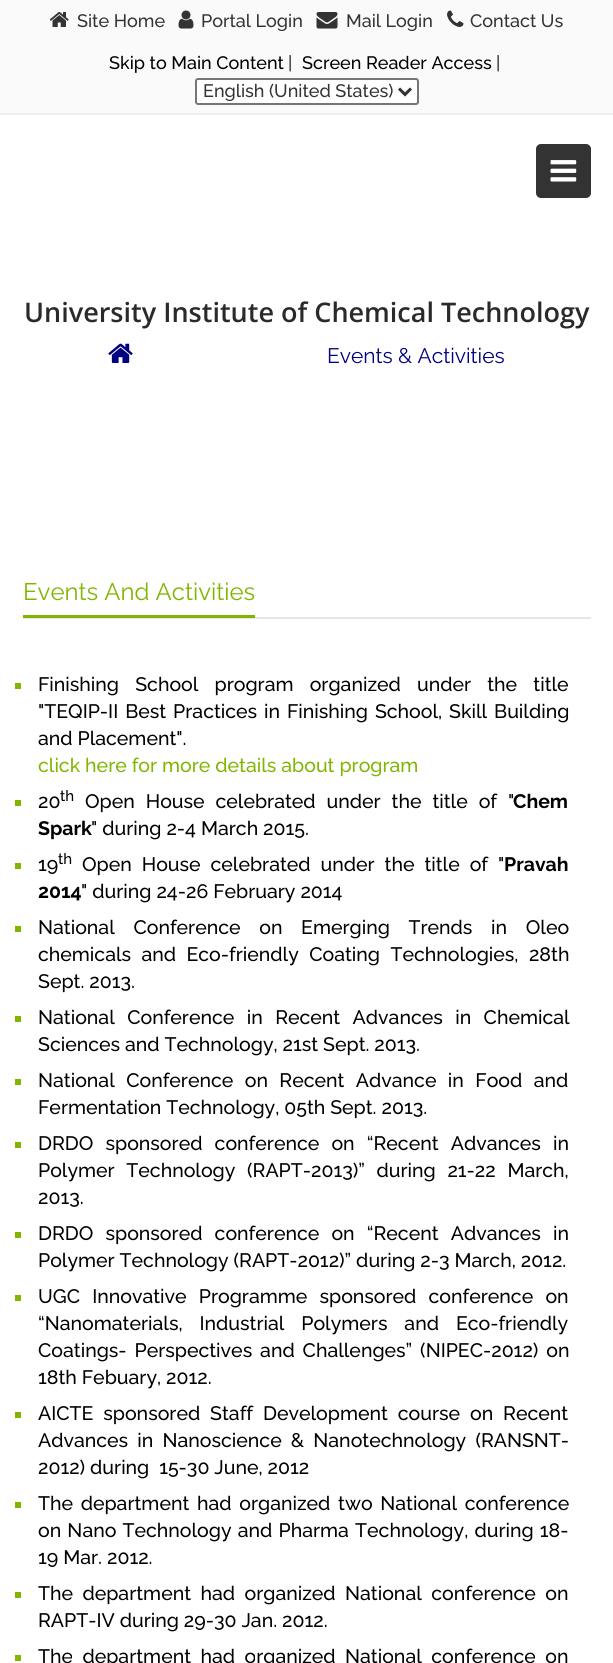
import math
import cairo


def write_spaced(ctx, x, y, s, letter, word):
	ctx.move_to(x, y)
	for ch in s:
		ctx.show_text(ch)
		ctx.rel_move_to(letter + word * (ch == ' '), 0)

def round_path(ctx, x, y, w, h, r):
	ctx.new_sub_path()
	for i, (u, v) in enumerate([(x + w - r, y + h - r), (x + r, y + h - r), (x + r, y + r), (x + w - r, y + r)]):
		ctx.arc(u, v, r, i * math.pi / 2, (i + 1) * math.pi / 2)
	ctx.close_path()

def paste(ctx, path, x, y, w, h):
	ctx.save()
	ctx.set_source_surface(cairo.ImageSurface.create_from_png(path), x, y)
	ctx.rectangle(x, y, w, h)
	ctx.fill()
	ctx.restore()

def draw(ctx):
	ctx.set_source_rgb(1, 1, 1)
	ctx.paint()
	ctx.set_source_rgb(0.98, 0.98, 0.98)
	ctx.rectangle(0, 0, 613, 113)
	ctx.fill()
	ctx.set_source_rgb(0.933, 0.933, 0.933)
	ctx.rectangle(0, 113, 613, 2)
	ctx.fill()
	paste(ctx, 'media/1.png', 49, 12, 20, 15)
	ctx.select_font_face('Raleway Medium')
	ctx.set_font_size(18)
	ctx.set_source_rgb(0.2, 0.2, 0.2)
	ctx.move_to(77, 27)
	ctx.show_text('Site Home')
	paste(ctx, 'media/2.png', 178, 10, 16, 19)
	ctx.move_to(201, 27)
	ctx.show_text('Portal Login')
	paste(ctx, 'media/3.png', 316, 12, 22, 17)
	ctx.move_to(346, 27)
	ctx.show_text('Mail Login')
	paste(ctx, 'media/4.png', 447, 10, 17, 17)
	ctx.move_to(470, 27)
	ctx.show_text('Contact Us')
	ctx.set_source_rgb(0, 0, 0)
	ctx.move_to(109, 69)
	ctx.show_text('Skip to Main Content')
	ctx.set_source_rgb(0.2, 0.2, 0.2)
	ctx.move_to(288, 69)
	ctx.show_text('|')
	ctx.set_source_rgb(0, 0, 0)
	ctx.move_to(302, 69)
	ctx.show_text('Screen Reader Access')
	ctx.set_source_rgb(0.2, 0.2, 0.2)
	ctx.move_to(496, 69)
	ctx.show_text('|')
	ctx.set_source_rgb(1, 1, 1)
	round_path(ctx, 196, 79, 222, 25, 2)
	ctx.fill_preserve()
	ctx.set_source_rgb(0.463, 0.463, 0.463)
	ctx.stroke()
	ctx.new_path()
	ctx.move_to(399, 88.5)
	ctx.line_to(405, 94.5)
	ctx.line_to(411, 88.5)
	ctx.set_source_rgb(0.2, 0.2, 0.2)
	ctx.set_line_width(3)
	ctx.stroke()
	ctx.move_to(203, 97)
	ctx.show_text('English (United States)')
	round_path(ctx, 536, 144, 55, 54, 5)
	ctx.fill()
	paste(ctx, 'media/5.png', 550, 160, 27, 22)
	ctx.select_font_face('Open Sans SemiBold')
	ctx.set_font_size(27)
	ctx.set_source_rgb(0.165, 0.165, 0.165)
	ctx.move_to(24, 322)
	ctx.show_text('University Institute of Chemical Technology')
	paste(ctx, 'media/6.png', 108, 343, 25, 20)
	ctx.select_font_face('Raleway')
	ctx.set_font_size(21)
	ctx.set_source_rgb(0, 0, 0.502)
	ctx.move_to(327, 363)
	ctx.show_text('Events & Activities')
	ctx.set_source_rgb(0.898, 0.906, 0.902)
	ctx.rectangle(23, 617, 568, 2)
	ctx.fill()
	ctx.set_source_rgb(0.502, 0.714, 0)
	ctx.rectangle(23, 615, 232, 3)
	ctx.fill()
	ctx.set_font_size(24)
	ctx.move_to(23, 600)
	ctx.show_text('Events And Activities')
	ctx.rectangle(15, 683, 6, 6)
	ctx.fill()
	ctx.select_font_face('Raleway Medium')
	ctx.set_font_size(19.5)
	ctx.set_source_rgb(0, 0, 0)
	write_spaced(ctx, 38, 691, 'Finishing School program organized under the title', 0, 11.25)
	write_spaced(ctx, 38, 718, '"TEQIP-II Best Practices in Finishing School, Skill Building', 0, 2)
	ctx.move_to(38, 745)
	ctx.show_text('and Placement".')
	ctx.set_source_rgb(0.502, 0.714, 0)
	ctx.move_to(38, 772)
	ctx.show_text('click here for more details about program')
	ctx.rectangle(15, 800, 6, 6)
	ctx.fill()
	ctx.set_source_rgb(0, 0, 0)
	ctx.move_to(38, 808)
	ctx.show_text('20')
	ctx.set_font_size(15)
	ctx.move_to(60, 801)
	ctx.show_text('th')
	ctx.set_font_size(19.5)
	write_spaced(ctx, 85, 808, 'Open House celebrated under the title of "', 0, 6)
	ctx.select_font_face('Raleway', cairo.FONT_SLANT_NORMAL, cairo.FONT_WEIGHT_BOLD)
	ctx.move_to(513, 808)
	ctx.show_text('Chem')
	ctx.move_to(38, 835)
	ctx.show_text('Spark')
	ctx.select_font_face('Raleway Medium')
	ctx.move_to(91, 835)
	ctx.show_text('" during 2-4 March 2015.')
	ctx.set_source_rgb(0.502, 0.714, 0)
	ctx.rectangle(15, 863, 6, 6)
	ctx.fill()
	ctx.set_source_rgb(0, 0, 0)
	ctx.move_to(38, 871)
	ctx.show_text('19')
	ctx.set_font_size(15)
	ctx.move_to(58, 864)
	ctx.show_text('th')
	ctx.set_font_size(19.5)
	write_spaced(ctx, 82, 871, 'Open House celebrated under the title of "', 0, 5)
	ctx.select_font_face('Raleway', cairo.FONT_SLANT_NORMAL, cairo.FONT_WEIGHT_BOLD)
	ctx.move_to(504, 871)
	ctx.show_text('Pravah')
	ctx.move_to(38, 898)
	ctx.show_text('2014')
	ctx.select_font_face('Raleway Medium')
	ctx.move_to(81, 898)
	ctx.show_text('" during 24-26 February 2014')
	ctx.set_source_rgb(0.502, 0.714, 0)
	ctx.rectangle(15, 926, 6, 6)
	ctx.fill()
	ctx.set_source_rgb(0, 0, 0)
	write_spaced(ctx, 38, 934, 'National Conference on Emerging Trends in Oleo', 0, 13.75)
	write_spaced(ctx, 38, 961, 'chemicals and Eco-friendly Coating Technologies, 28th', 0, 5.5)
	ctx.move_to(38, 988)
	ctx.show_text('Sept. 2013.')
	ctx.set_source_rgb(0.502, 0.714, 0)
	ctx.rectangle(15, 1016, 6, 6)
	ctx.fill()
	ctx.set_source_rgb(0, 0, 0)
	write_spaced(ctx, 38, 1024, 'National Conference in Recent Advances in Chemical', 0, 7.5)
	ctx.move_to(38, 1051)
	ctx.show_text('Sciences and Technology, 21st Sept. 2013.')
	ctx.set_source_rgb(0.502, 0.714, 0)
	ctx.rectangle(15, 1079, 6, 6)
	ctx.fill()
	ctx.set_source_rgb(0, 0, 0)
	write_spaced(ctx, 38, 1087, 'National Conference on Recent Advance in Food and', 0, 6.5)
	ctx.move_to(38, 1114)
	ctx.show_text('Fermentation Technology, 05th Sept. 2013.')
	ctx.set_source_rgb(0.502, 0.714, 0)
	ctx.rectangle(15, 1142, 6, 6)
	ctx.fill()
	ctx.set_source_rgb(0, 0, 0)
	write_spaced(ctx, 38, 1150, 'DRDO sponsored conference on “Recent Advances in', 0, 7.25)
	write_spaced(ctx, 38, 1177, 'Polymer Technology (RAPT-2013)” during 21-22 March,', 0, 6.75)
	ctx.move_to(38, 1204)
	ctx.show_text('2013.')
	ctx.set_source_rgb(0.502, 0.714, 0)
	ctx.rectangle(15, 1232, 6, 6)
	ctx.fill()
	ctx.set_source_rgb(0, 0, 0)
	write_spaced(ctx, 38, 1240, 'DRDO sponsored conference on “Recent Advances in', 0, 7.25)
	ctx.move_to(38, 1267)
	ctx.show_text('Polymer Technology (RAPT-2012)” during 2-3 March, 2012.')
	ctx.set_source_rgb(0.502, 0.714, 0)
	ctx.rectangle(15, 1295, 6, 6)
	ctx.fill()
	ctx.set_source_rgb(0, 0, 0)
	write_spaced(ctx, 38, 1303, 'UGC Innovative Programme sponsored conference on', 0, 7.25)
	write_spaced(ctx, 38, 1330, '“Nanomaterials, Industrial Polymers and Eco-friendly', 0, 12)
	write_spaced(ctx, 38, 1357, 'Coatings- Perspectives and Challenges” (NIPEC-2012) on', 0, 3)
	ctx.move_to(38, 1384)
	ctx.show_text('18th Febuary, 2012.')
	ctx.set_source_rgb(0.502, 0.714, 0)
	ctx.rectangle(15, 1412, 6, 6)
	ctx.fill()
	ctx.set_source_rgb(0, 0, 0)
	write_spaced(ctx, 38, 1420, 'AICTE sponsored Staff Development course on Recent', 0, 5)
	write_spaced(ctx, 38, 1447, 'Advances in Nanoscience & Nanotechnology (RANSNT-', 0, 4.25)
	ctx.move_to(38, 1474)
	ctx.show_text('2012) during  15-30 June, 2012')
	ctx.set_source_rgb(0.502, 0.714, 0)
	ctx.rectangle(15, 1502, 6, 6)
	ctx.fill()
	ctx.set_source_rgb(0, 0, 0)
	write_spaced(ctx, 38, 1510, 'The department had organized two National conference', 0, 2.75)
	write_spaced(ctx, 38, 1537, 'on Nano Technology and Pharma Technology, during 18-', 0, 1.25)
	ctx.move_to(38, 1564)
	ctx.show_text('19 Mar. 2012.')
	ctx.set_source_rgb(0.502, 0.714, 0)
	ctx.rectangle(15, 1592, 6, 6)
	ctx.fill()
	ctx.set_source_rgb(0, 0, 0)
	write_spaced(ctx, 38, 1600, 'The department had organized National conference on', 0, 4.5)
	ctx.move_to(38, 1627)
	ctx.show_text('RAPT-IV during 29-30 Jan. 2012.')
	ctx.set_source_rgb(0.502, 0.714, 0)
	ctx.rectangle(15, 1655, 6, 6)
	ctx.fill()
	ctx.set_source_rgb(0, 0, 0)
	write_spaced(ctx, 38, 1663, 'The department had organized National conference on', 0, 4.5)


surface = cairo.ImageSurface(cairo.FORMAT_RGB24, 613, 1663)
ctx = cairo.Context(surface)
options = cairo.FontOptions()
options.set_hint_metrics(cairo.HINT_METRICS_OFF)
options.set_hint_style(cairo.HINT_STYLE_NONE)
ctx.set_font_options(options)
ctx.set_miter_limit(4)
draw(ctx)
surface.write_to_png('image.png')
